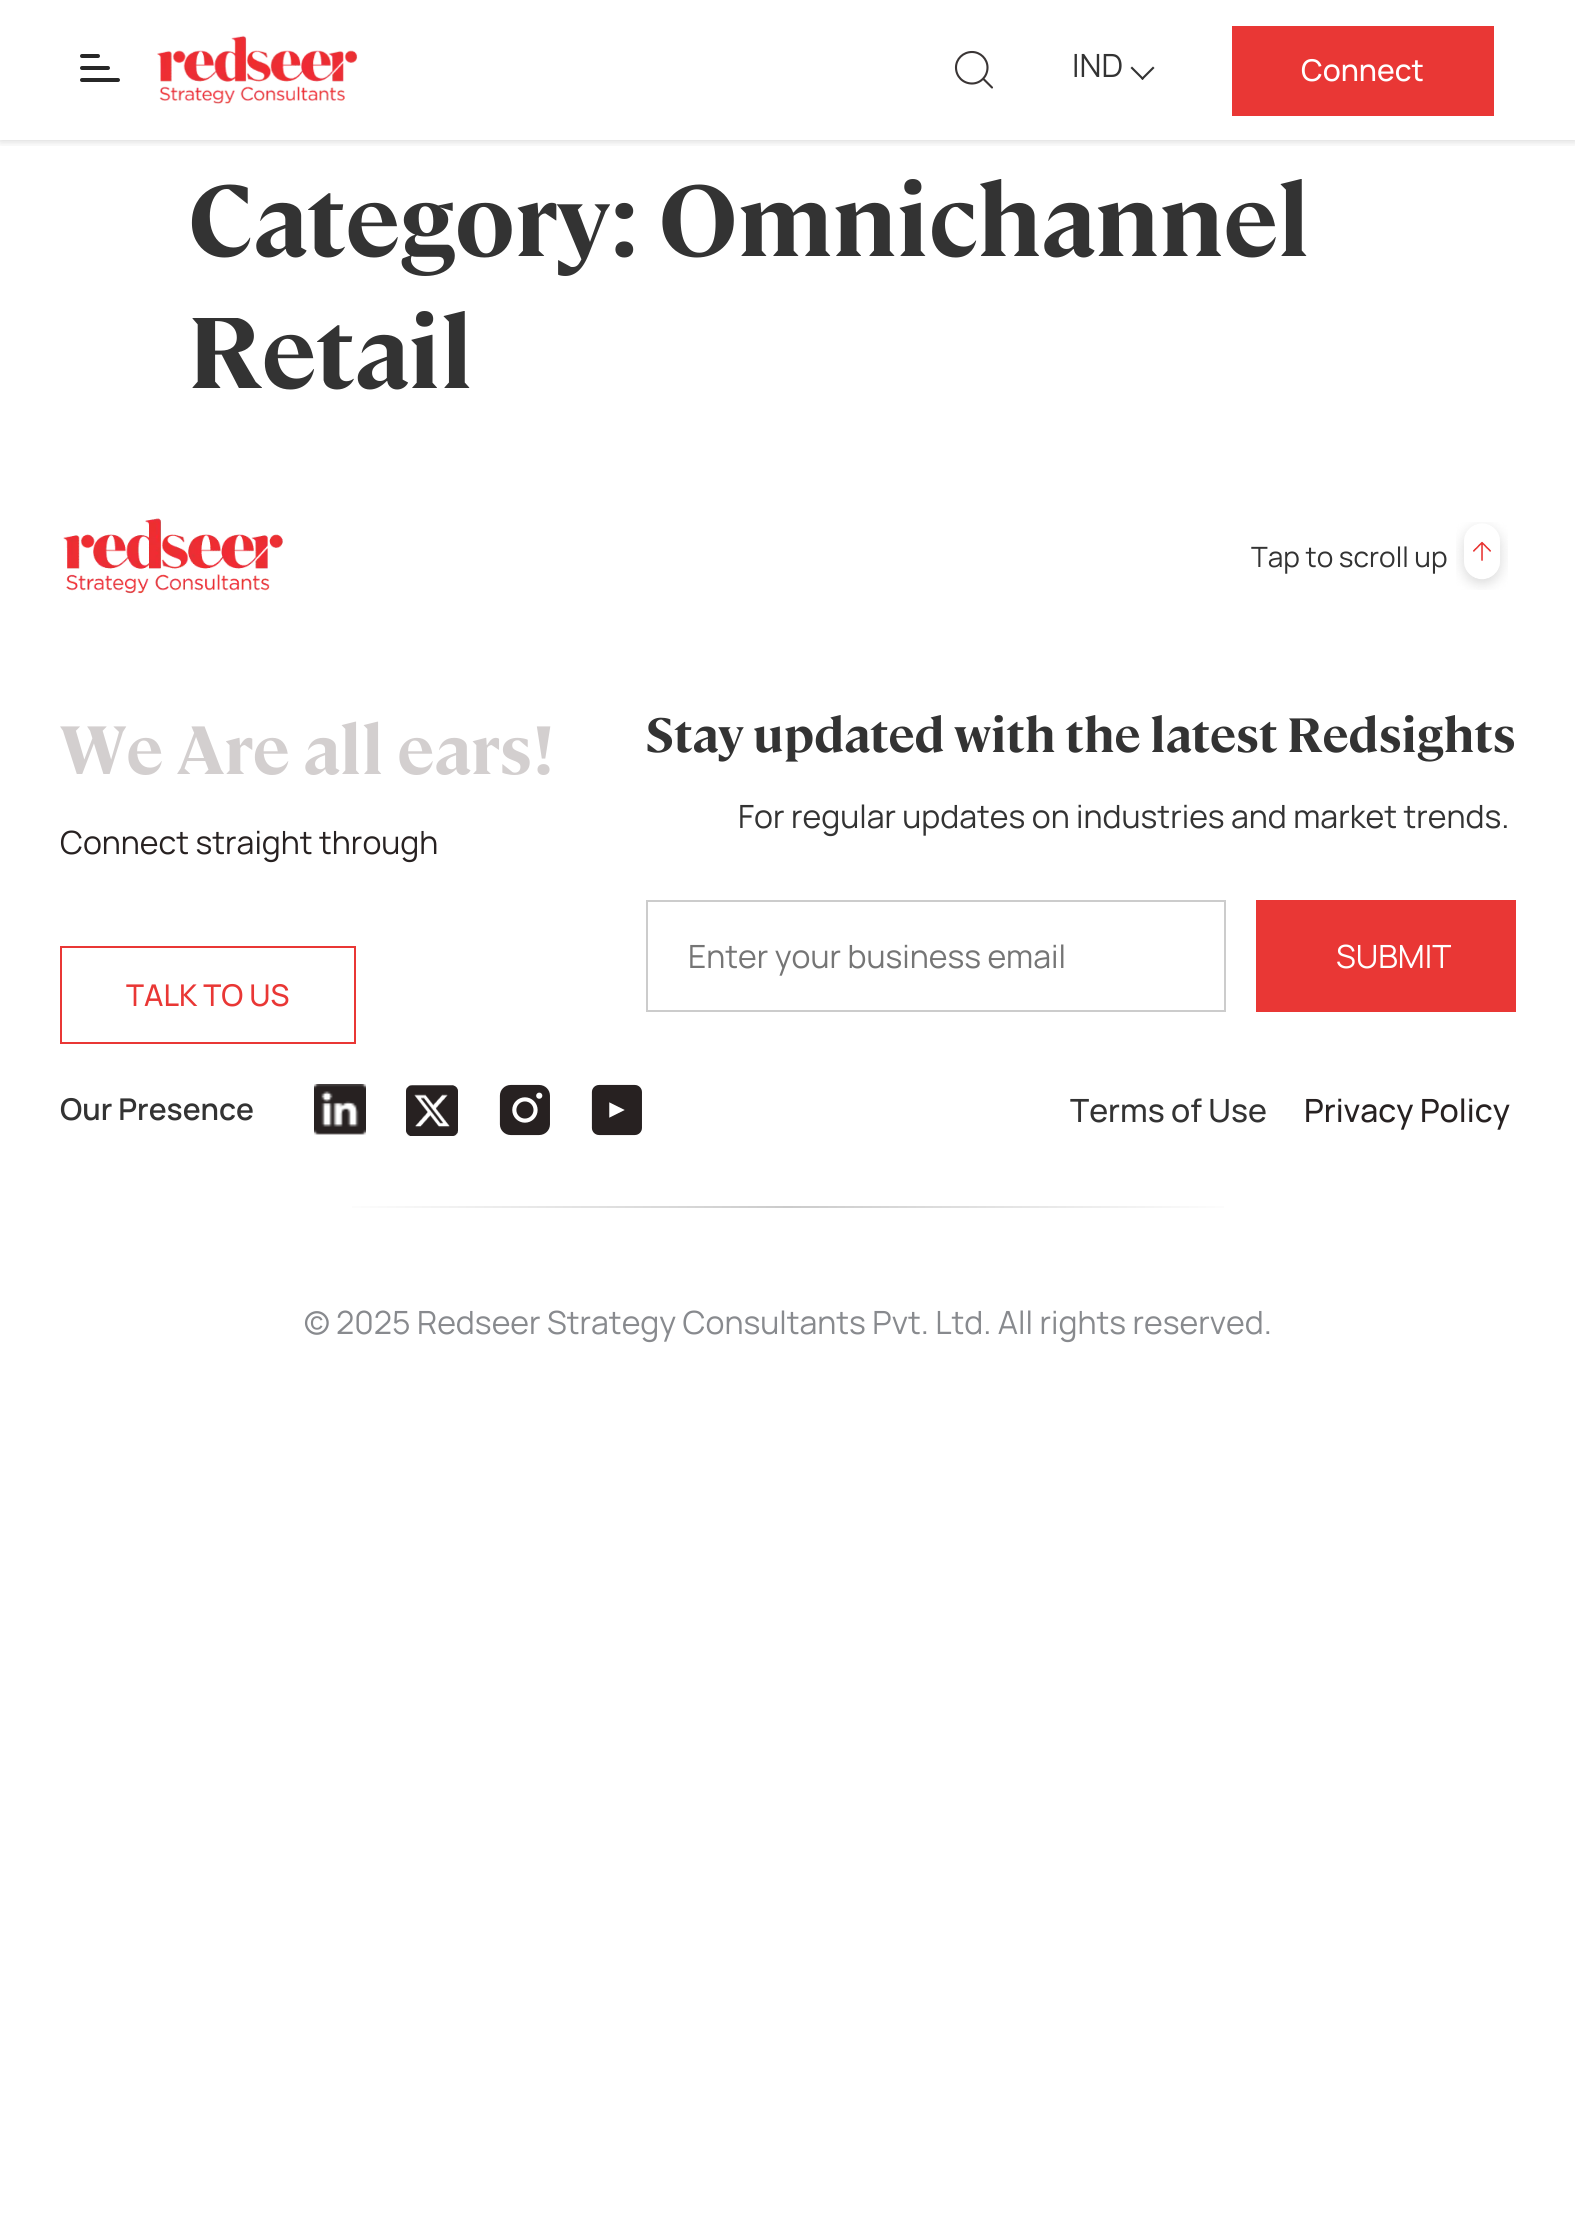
import math
import cairo


def round_path(ctx, x, y, w, h, r):
	ctx.new_sub_path()
	for i, (u, v) in enumerate([(x + w - r, y + h - r), (x + r, y + h - r), (x + r, y + r), (x + w - r, y + r)]):
		ctx.arc(u, v, r, i * math.pi / 2, (i + 1) * math.pi / 2)
	ctx.close_path()

def blur_box(ctx, x, y, w, h, r, blur, alpha):
	ctx.push_group_with_content(cairo.CONTENT_ALPHA)
	ctx.set_operator(cairo.OPERATOR_SOURCE)
	for i in range(15, -16, -2):
		e = blur * i / 6
		if min(w, h) + 2 * e > 0:
			ctx.set_source_rgba(0, 0, 0, alpha * math.erfc((i - 1) / 8.5) / 2)
			round_path(ctx, x - e, y - e, w + 2 * e, h + 2 * e, max(0, min(r + e + blur * .6, min(w, h) / 2 + e)))
			ctx.fill()
	ctx.mask(ctx.pop_group())

def paste(ctx, path, x, y, w, h):
	ctx.save()
	ctx.set_source_surface(cairo.ImageSurface.create_from_png(path), x, y)
	ctx.rectangle(x, y, w, h)
	ctx.fill()
	ctx.restore()

def draw(ctx):
	ctx.set_source_rgb(1, 1, 1)
	ctx.paint()
	ctx.save()
	ctx.rectangle(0, 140, 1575, 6)
	ctx.clip()
	ctx.set_source_rgb(0, 0, 0)
	blur_box(ctx, 0, 0, 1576, 140, 0, 5, 0.2)
	ctx.restore()
	ctx.set_source_rgb(0.153, 0.153, 0.153)
	round_path(ctx, 80, 54, 20, 4, 2)
	ctx.fill()
	round_path(ctx, 80, 66, 30, 4, 2)
	ctx.fill()
	round_path(ctx, 80, 78, 40, 4, 2)
	ctx.fill()
	paste(ctx, 'media/1.png', 157, 35, 201, 69)
	ctx.new_path()
	ctx.move_to(972, 83.5)
	ctx.curve_to(980.5, 83.5, 987.5, 76.5, 987.5, 67.5)
	ctx.curve_to(987.5, 59, 980.5, 52, 972, 52)
	ctx.curve_to(963, 52, 956, 59, 956, 67.5)
	ctx.curve_to(956, 76.5, 963, 83.5, 972, 83.5)
	ctx.close_path()
	ctx.move_to(992, 87.5)
	ctx.line_to(983.5, 79)
	ctx.set_source_rgb(0.227, 0.208, 0.208)
	ctx.set_line_width(2.1)
	ctx.set_line_cap(cairo.LINE_CAP_ROUND)
	ctx.set_line_join(cairo.LINE_JOIN_ROUND)
	ctx.stroke()
	ctx.select_font_face('Manrope')
	ctx.set_font_size(32)
	ctx.set_source_rgb(0.2, 0.2, 0.2)
	ctx.move_to(1072, 77)
	ctx.show_text('IND')
	ctx.new_path()
	ctx.move_to(1153, 66.5)
	ctx.line_to(1154.5, 68)
	ctx.line_to(1142.5, 80)
	ctx.line_to(1141, 78.5)
	ctx.close_path()
	ctx.fill()
	ctx.new_path()
	ctx.move_to(1132, 66.5)
	ctx.line_to(1144, 78.5)
	ctx.line_to(1142.5, 80)
	ctx.line_to(1130.5, 68)
	ctx.close_path()
	ctx.fill()
	ctx.set_source_rgb(0.914, 0.216, 0.208)
	ctx.rectangle(1232, 26, 262, 90)
	ctx.fill()
	ctx.select_font_face('Manrope Medium')
	ctx.set_font_size(30)
	ctx.set_source_rgb(1, 1, 1)
	ctx.move_to(1301, 81)
	ctx.show_text('Connect')
	ctx.select_font_face('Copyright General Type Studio', cairo.FONT_SLANT_NORMAL, cairo.FONT_WEIGHT_BOLD)
	ctx.set_font_size(100)
	ctx.set_source_rgb(0.2, 0.2, 0.2)
	ctx.move_to(188, 256)
	ctx.show_text('Category: Omnichannel')
	ctx.move_to(188, 388)
	ctx.show_text('Retail')
	paste(ctx, 'media/2.png', 63, 518, 220, 76)
	ctx.select_font_face('Manrope')
	ctx.set_font_size(28)
	ctx.move_to(1251, 567)
	ctx.show_text('Tap to scroll up')
	paste(ctx, 'media/3.png', 1456, 522, 52, 68)
	ctx.select_font_face('Copyright General Type Studio', cairo.FONT_SLANT_NORMAL, cairo.FONT_WEIGHT_BOLD)
	ctx.set_font_size(68)
	ctx.set_source_rgb(0.827, 0.812, 0.812)
	ctx.move_to(60, 774)
	ctx.show_text('We Are all ears!')
	ctx.select_font_face('Manrope')
	ctx.set_font_size(32)
	ctx.set_source_rgb(0.153, 0.129, 0.129)
	ctx.move_to(60, 854)
	ctx.show_text('Connect straight through')
	ctx.rectangle(61, 947, 294, 96)
	ctx.set_source_rgb(0.914, 0.216, 0.208)
	ctx.set_line_width(2)
	ctx.set_line_cap(cairo.LINE_CAP_BUTT)
	ctx.set_line_join(cairo.LINE_JOIN_MITER)
	ctx.stroke()
	ctx.select_font_face('Manrope Medium')
	ctx.set_font_size(30)
	ctx.move_to(126, 1006)
	ctx.show_text('TALK TO US')
	ctx.select_font_face('Copyright General Type Studio', cairo.FONT_SLANT_NORMAL, cairo.FONT_WEIGHT_BOLD)
	ctx.set_font_size(48)
	ctx.set_source_rgb(0.2, 0.2, 0.2)
	ctx.move_to(645, 752)
	ctx.show_text('Stay updated with the latest Redsights')
	ctx.select_font_face('Manrope')
	ctx.set_font_size(32)
	ctx.move_to(738, 828)
	ctx.show_text('For regular updates on industries and market trends.')
	ctx.rectangle(647, 901, 578, 110)
	ctx.set_source_rgb(0.8, 0.8, 0.8)
	ctx.stroke()
	ctx.set_source_rgb(0.459, 0.459, 0.459)
	ctx.move_to(688, 968)
	ctx.show_text('Enter your business email')
	ctx.set_source_rgb(0.914, 0.216, 0.208)
	ctx.rectangle(1256, 900, 260, 112)
	ctx.fill()
	ctx.set_source_rgb(1, 1, 1)
	ctx.move_to(1336, 968)
	ctx.show_text('SUBMIT')
	ctx.select_font_face('Manrope SemiBold')
	ctx.set_font_size(30)
	ctx.set_source_rgb(0.2, 0.2, 0.2)
	ctx.move_to(60, 1120)
	ctx.show_text('Our Presence')
	paste(ctx, 'media/4.png', 314, 1084, 52, 51)
	paste(ctx, 'media/5.png', 406, 1085, 52, 51)
	paste(ctx, 'media/6.png', 499, 1084, 51, 52)
	paste(ctx, 'media/7.png', 591, 1084, 51, 52)
	ctx.select_font_face('Manrope Medium')
	ctx.set_font_size(32)
	ctx.move_to(1070, 1122)
	ctx.show_text('Terms of Use')
	ctx.set_source_rgb(0.153, 0.129, 0.129)
	ctx.move_to(1304, 1122)
	ctx.show_text('Privacy Policy')
	gradient = cairo.LinearGradient(330, 1207, 1246, 1207)
	gradient.add_color_stop_rgba(0, 1, 1, 1, 1)
	gradient.add_color_stop_rgba(0.5, 0.796, 0.796, 0.796, 1)
	gradient.add_color_stop_rgba(1, 1, 1, 1, 1)
	ctx.set_source(gradient)
	ctx.rectangle(352, 1206, 872, 2)
	ctx.fill()
	ctx.select_font_face('Manrope')
	ctx.set_source_rgb(0.533, 0.541, 0.557)
	ctx.move_to(304, 1334)
	ctx.show_text('© 2025 Redseer Strategy Consultants Pvt. Ltd. All rights reserved.')


surface = cairo.ImageSurface(cairo.FORMAT_RGB24, 1575, 2213)
ctx = cairo.Context(surface)
options = cairo.FontOptions()
options.set_hint_metrics(cairo.HINT_METRICS_OFF)
options.set_hint_style(cairo.HINT_STYLE_NONE)
ctx.set_font_options(options)
ctx.set_miter_limit(4)
draw(ctx)
surface.write_to_png('image.png')
